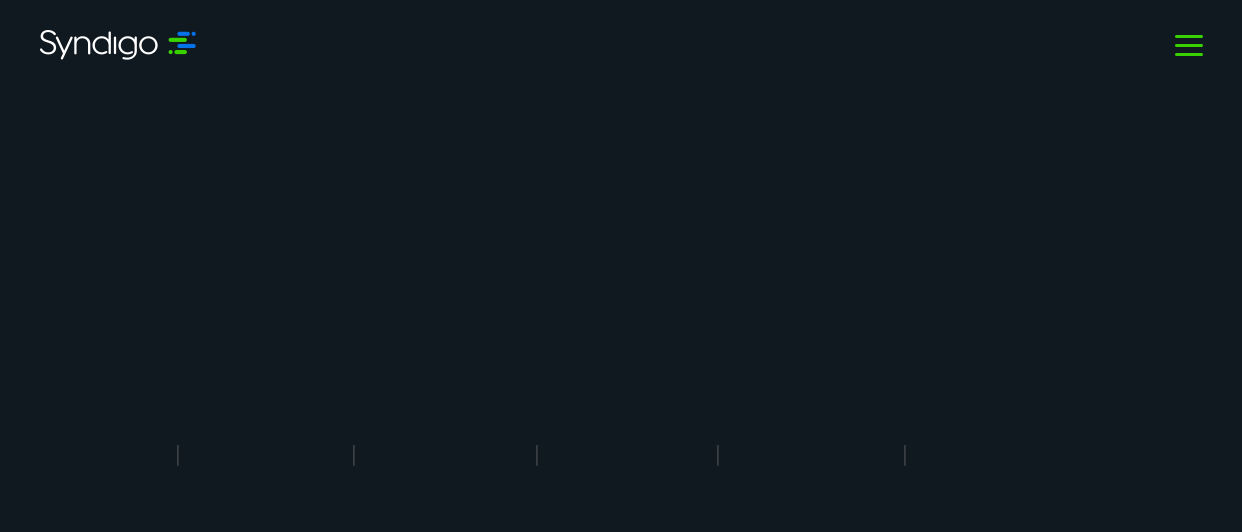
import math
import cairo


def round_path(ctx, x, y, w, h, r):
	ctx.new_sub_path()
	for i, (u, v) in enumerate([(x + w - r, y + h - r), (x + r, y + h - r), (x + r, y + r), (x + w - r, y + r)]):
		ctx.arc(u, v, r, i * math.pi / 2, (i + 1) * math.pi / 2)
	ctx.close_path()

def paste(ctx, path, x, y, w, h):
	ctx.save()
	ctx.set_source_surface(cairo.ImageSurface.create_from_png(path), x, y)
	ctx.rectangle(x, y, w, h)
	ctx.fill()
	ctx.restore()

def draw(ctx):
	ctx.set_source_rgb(0.063, 0.094, 0.125)
	ctx.paint()
	paste(ctx, 'media/1.png', 40, 30, 156, 30)
	ctx.set_source_rgb(0.22, 0.824, 0)
	round_path(ctx, 1175, 35, 28, 3, 1.5)
	ctx.fill()
	round_path(ctx, 1175, 44, 28, 3, 1.5)
	ctx.fill()
	round_path(ctx, 1175, 53, 28, 3, 1.5)
	ctx.fill()
	ctx.select_font_face('Liberation Sans')
	ctx.set_font_size(22)
	ctx.set_source_rgb(0.22, 0.243, 0.267)
	for x, y, s in [
		(175, 461, '|'),
		(351, 461, '|'),
		(534, 461, '|'),
		(715, 461, '|'),
		(902, 461, '|'),
	]:
		ctx.move_to(x, y)
		ctx.show_text(s)


surface = cairo.ImageSurface(cairo.FORMAT_RGB24, 1242, 532)
ctx = cairo.Context(surface)
options = cairo.FontOptions()
options.set_hint_metrics(cairo.HINT_METRICS_OFF)
options.set_hint_style(cairo.HINT_STYLE_NONE)
ctx.set_font_options(options)
ctx.set_miter_limit(4)
draw(ctx)
surface.write_to_png('image.png')
